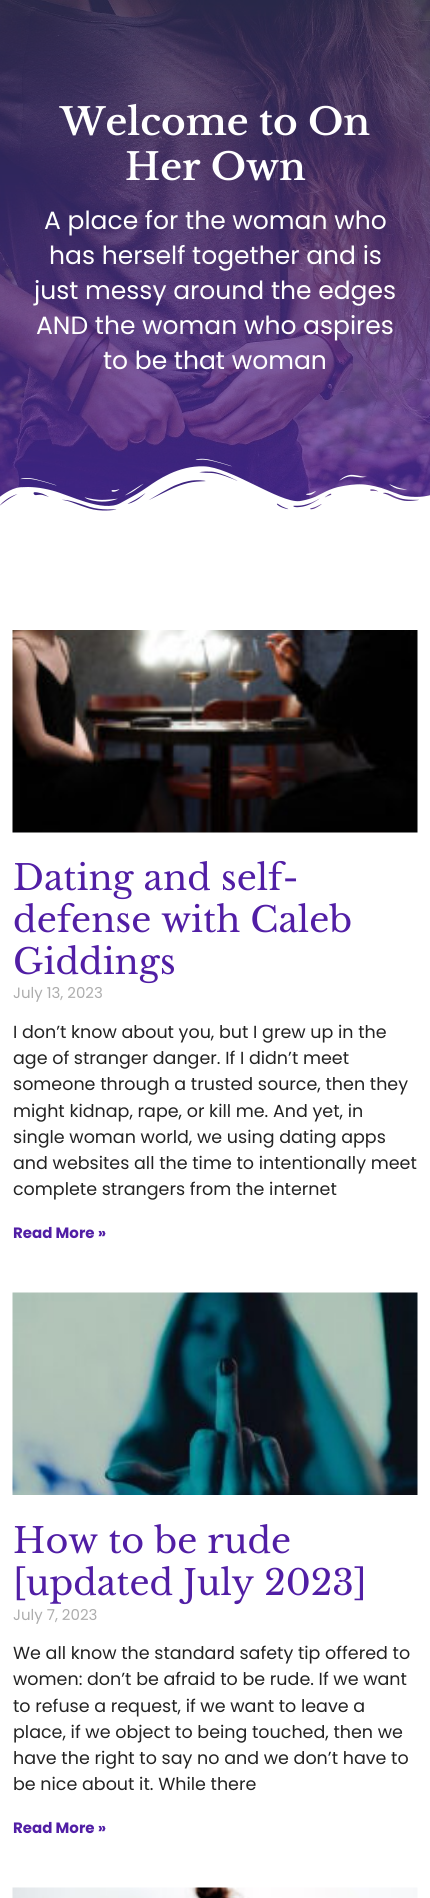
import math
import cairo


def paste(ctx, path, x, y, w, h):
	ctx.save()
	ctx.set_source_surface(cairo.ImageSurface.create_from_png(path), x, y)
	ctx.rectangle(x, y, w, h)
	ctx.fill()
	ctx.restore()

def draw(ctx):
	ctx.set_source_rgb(1, 1, 1)
	ctx.paint()
	paste(ctx, 'media/1.png', 0, 0, 430, 511)
	gradient = cairo.LinearGradient(215, 518, 215, -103)
	gradient.add_color_stop_rgba(0.04, 0.318, 0.118, 0.647, 0.66)
	gradient.add_color_stop_rgba(1, 0.18, 0.145, 0.243, 0.66)
	ctx.set_source(gradient)
	ctx.rectangle(0, 0, 430, 511)
	ctx.fill()
	ctx.select_font_face('Libre Baskerville SemiBold')
	ctx.set_font_size(37.5)
	ctx.set_source_rgb(1, 1, 1)
	ctx.move_to(60, 135)
	ctx.show_text('Welcome to On')
	ctx.move_to(125, 180)
	ctx.show_text('Her Own')
	ctx.select_font_face('Poppins')
	ctx.set_font_size(25)
	for x, y, s in [
		(44, 229, 'A place for the woman who'),
		(49, 264, 'has herself together and is'),
		(34, 299, 'just messy around the edges'),
		(36, 334, 'AND the woman who aspires'),
		(103, 369, 'to be that woman'),
	]:
		ctx.move_to(x, y)
		ctx.show_text(s)
	paste(ctx, 'media/2.png', 0, 458, 430, 60)
	paste(ctx, 'media/3.png', 12, 630, 406, 203)
	ctx.select_font_face('Libre Baskerville')
	ctx.set_font_size(35)
	ctx.set_source_rgb(0.318, 0.118, 0.647)
	for x, y, s in [
		(13, 890, 'Dating and self-'),
		(13, 932, 'defense with Caleb'),
		(13, 974, 'Giddings'),
	]:
		ctx.move_to(x, y)
		ctx.show_text(s)
	ctx.select_font_face('Poppins')
	ctx.set_font_size(15)
	ctx.set_source_rgb(0.678, 0.678, 0.678)
	ctx.move_to(13, 998)
	ctx.show_text('July 13, 2023')
	ctx.set_font_size(17.5)
	ctx.set_source_rgb(0.137, 0.137, 0.137)
	for x, y, s in [
		(13, 1038, 'I don’t know about you, but I grew up in the'),
		(13, 1064, 'age of stranger danger. If I didn’t meet'),
		(13, 1090, 'someone through a trusted source, then they'),
		(13, 1117, 'might kidnap, rape, or kill me. And yet, in'),
		(13, 1143, 'single woman world, we using dating apps'),
		(13, 1169, 'and websites all the time to intentionally meet'),
		(13, 1195, 'complete strangers from the internet'),
	]:
		ctx.move_to(x, y)
		ctx.show_text(s)
	ctx.select_font_face('Poppins', cairo.FONT_SLANT_NORMAL, cairo.FONT_WEIGHT_BOLD)
	ctx.set_font_size(15)
	ctx.set_source_rgb(0.318, 0.118, 0.647)
	ctx.move_to(13, 1238)
	ctx.show_text('Read More »')
	paste(ctx, 'media/4.png', 12, 1292, 406, 203)
	ctx.select_font_face('Libre Baskerville')
	ctx.set_font_size(35)
	ctx.move_to(13, 1553)
	ctx.show_text('How to be rude')
	ctx.move_to(13, 1595)
	ctx.show_text('[updated July 2023]')
	ctx.select_font_face('Poppins')
	ctx.set_font_size(15)
	ctx.set_source_rgb(0.678, 0.678, 0.678)
	ctx.move_to(13, 1620)
	ctx.show_text('July 7, 2023')
	ctx.set_font_size(17.5)
	ctx.set_source_rgb(0.137, 0.137, 0.137)
	for x, y, s in [
		(13, 1659, 'We all know the standard safety tip offered to'),
		(13, 1685, 'women: don’t be afraid to be rude. If we want'),
		(13, 1712, 'to refuse a request, if we want to leave a'),
		(13, 1738, 'place, if we object to being touched, then we'),
		(13, 1764, 'have the right to say no and we don’t have to'),
		(13, 1790, 'be nice about it. While there'),
	]:
		ctx.move_to(x, y)
		ctx.show_text(s)
	ctx.select_font_face('Poppins', cairo.FONT_SLANT_NORMAL, cairo.FONT_WEIGHT_BOLD)
	ctx.set_font_size(15)
	ctx.set_source_rgb(0.318, 0.118, 0.647)
	ctx.move_to(13, 1833)
	ctx.show_text('Read More »')
	paste(ctx, 'media/5.png', 12, 1887, 406, 11)


surface = cairo.ImageSurface(cairo.FORMAT_RGB24, 430, 1898)
ctx = cairo.Context(surface)
options = cairo.FontOptions()
options.set_hint_metrics(cairo.HINT_METRICS_OFF)
options.set_hint_style(cairo.HINT_STYLE_NONE)
ctx.set_font_options(options)
ctx.set_miter_limit(4)
draw(ctx)
surface.write_to_png('image.png')
